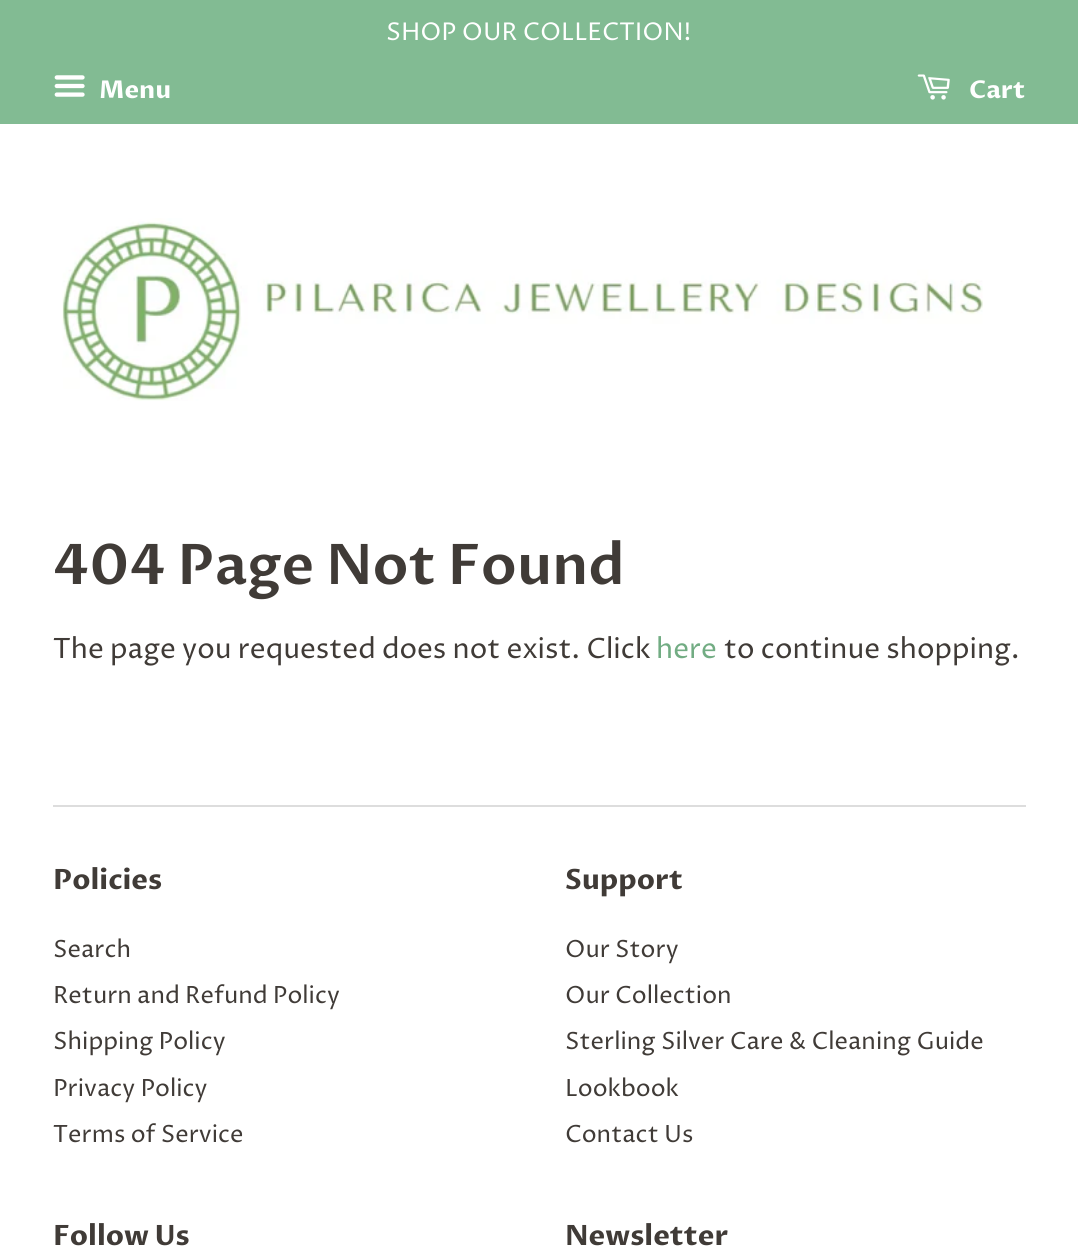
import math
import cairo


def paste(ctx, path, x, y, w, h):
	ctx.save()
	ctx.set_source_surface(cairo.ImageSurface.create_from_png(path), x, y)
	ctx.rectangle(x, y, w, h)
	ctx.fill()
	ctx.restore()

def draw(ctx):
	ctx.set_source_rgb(1, 1, 1)
	ctx.paint()
	ctx.set_source_rgb(0.51, 0.733, 0.576)
	ctx.rectangle(0, 0, 1078, 124)
	ctx.fill()
	ctx.select_font_face('Proza Libre')
	ctx.set_font_size(24.5)
	ctx.set_source_rgb(1, 1, 1)
	ctx.move_to(386, 40)
	ctx.show_text('SHOP OUR COLLECTION!')
	paste(ctx, 'media/1.png', 54, 75, 31, 22)
	ctx.select_font_face('Proza Libre', cairo.FONT_SLANT_NORMAL, cairo.FONT_WEIGHT_BOLD)
	ctx.move_to(99, 98)
	ctx.show_text('Menu')
	paste(ctx, 'media/2.png', 917, 74, 33, 26)
	ctx.move_to(969, 98)
	ctx.show_text('Cart')
	paste(ctx, 'media/3.png', 62, 218, 921, 183)
	ctx.select_font_face('Proza Libre SemiBold')
	ctx.set_font_size(56)
	ctx.set_source_rgb(0.251, 0.231, 0.216)
	ctx.move_to(53, 584)
	ctx.show_text('404 Page Not Found')
	ctx.select_font_face('Proza Libre')
	ctx.set_font_size(28)
	ctx.move_to(53, 658)
	ctx.show_text('The page you requested does not exist. Click')
	ctx.set_source_rgb(0.447, 0.675, 0.514)
	ctx.move_to(656, 658)
	ctx.show_text('here')
	ctx.set_source_rgb(0.251, 0.231, 0.216)
	ctx.move_to(724, 658)
	ctx.show_text('to continue shopping.')
	ctx.set_source_rgb(0.867, 0.867, 0.867)
	ctx.rectangle(53, 805, 973, 2)
	ctx.fill()
	ctx.select_font_face('Proza Libre', cairo.FONT_SLANT_NORMAL, cairo.FONT_WEIGHT_BOLD)
	ctx.set_source_rgb(0.251, 0.231, 0.216)
	ctx.move_to(53, 889)
	ctx.show_text('Policies')
	ctx.select_font_face('Proza Libre')
	ctx.set_font_size(23.75)
	for x, y, s in [
		(53, 957, 'Search'),
		(53, 1003, 'Return and Refund Policy'),
		(53, 1049, 'Shipping Policy'),
		(53, 1096, 'Privacy Policy'),
		(53, 1142, 'Terms of Service'),
	]:
		ctx.move_to(x, y)
		ctx.show_text(s)
	ctx.select_font_face('Proza Libre', cairo.FONT_SLANT_NORMAL, cairo.FONT_WEIGHT_BOLD)
	ctx.set_font_size(28)
	ctx.move_to(565, 889)
	ctx.show_text('Support')
	ctx.select_font_face('Proza Libre')
	ctx.set_font_size(23.75)
	for x, y, s in [
		(565, 957, 'Our Story'),
		(565, 1003, 'Our Collection'),
		(565, 1049, 'Sterling Silver Care & Cleaning Guide'),
		(565, 1096, 'Lookbook'),
		(565, 1142, 'Contact Us'),
	]:
		ctx.move_to(x, y)
		ctx.show_text(s)
	ctx.select_font_face('Proza Libre', cairo.FONT_SLANT_NORMAL, cairo.FONT_WEIGHT_BOLD)
	ctx.set_font_size(28)
	ctx.move_to(53, 1245)
	ctx.show_text('Follow Us')
	ctx.move_to(565, 1245)
	ctx.show_text('Newsletter')


surface = cairo.ImageSurface(cairo.FORMAT_RGB24, 1078, 1258)
ctx = cairo.Context(surface)
options = cairo.FontOptions()
options.set_hint_metrics(cairo.HINT_METRICS_OFF)
options.set_hint_style(cairo.HINT_STYLE_NONE)
ctx.set_font_options(options)
ctx.set_miter_limit(4)
draw(ctx)
surface.write_to_png('image.png')
